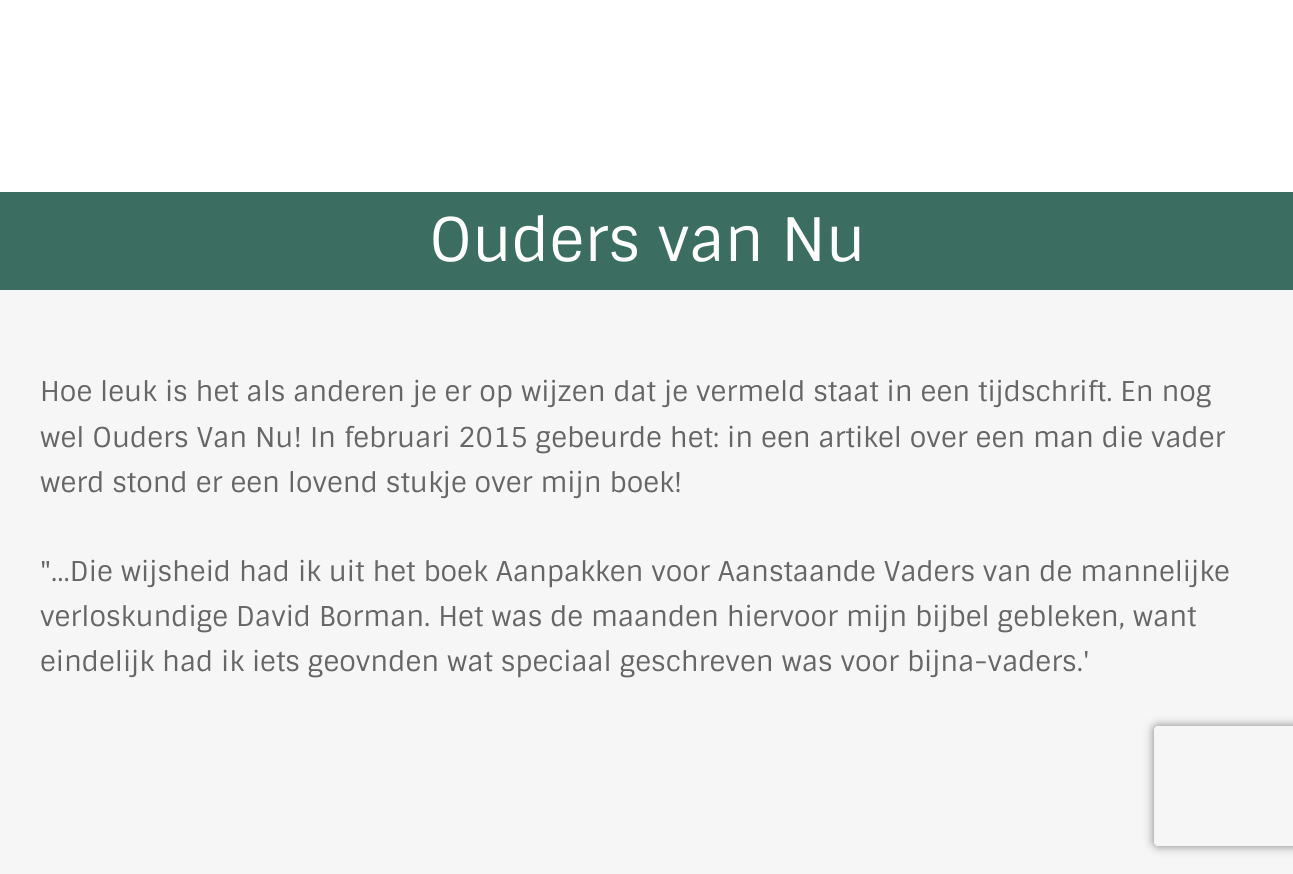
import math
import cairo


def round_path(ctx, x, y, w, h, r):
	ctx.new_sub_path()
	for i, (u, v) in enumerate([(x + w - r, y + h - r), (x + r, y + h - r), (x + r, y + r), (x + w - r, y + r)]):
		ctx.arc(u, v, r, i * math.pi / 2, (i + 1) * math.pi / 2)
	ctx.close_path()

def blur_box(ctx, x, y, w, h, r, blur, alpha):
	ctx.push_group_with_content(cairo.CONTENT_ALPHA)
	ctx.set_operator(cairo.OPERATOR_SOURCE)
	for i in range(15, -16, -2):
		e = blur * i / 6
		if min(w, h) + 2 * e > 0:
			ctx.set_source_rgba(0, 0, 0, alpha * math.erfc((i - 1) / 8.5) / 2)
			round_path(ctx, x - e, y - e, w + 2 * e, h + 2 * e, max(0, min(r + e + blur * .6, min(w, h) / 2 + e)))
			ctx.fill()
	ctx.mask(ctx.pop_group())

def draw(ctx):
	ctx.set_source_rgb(0.961, 0.961, 0.961)
	ctx.paint()
	ctx.set_source_rgb(1, 1, 1)
	ctx.rectangle(0, 0, 1293, 192)
	ctx.fill()
	ctx.set_source_rgb(0.231, 0.431, 0.376)
	ctx.rectangle(0, 192, 1293, 98)
	ctx.fill()
	ctx.select_font_face('Sintony')
	ctx.set_font_size(60)
	ctx.set_source_rgb(1, 1, 1)
	ctx.move_to(429, 261)
	ctx.show_text('Ouders van Nu')
	ctx.set_font_size(27.35)
	ctx.set_source_rgb(0.4, 0.4, 0.4)
	for x, y, s in [
		(40, 401, 'Hoe leuk is het als anderen je er op wijzen dat je vermeld staat in een tijdschrift. En nog'),
		(40, 447, 'wel Ouders Van Nu! In februari 2015 gebeurde het: in een artikel over een man die vader'),
		(40, 492, 'werd stond er een lovend stukje over mijn boek!'),
		(40, 581, '"...Die wijsheid had ik uit het boek Aanpakken voor Aanstaande Vaders van de mannelijke'),
		(40, 626, 'verloskundige David Borman. Het was de maanden hiervoor mijn bijbel gebleken, want'),
		(40, 671, 'eindelijk had ik iets geovnden wat speciaal geschreven was voor bijna-vaders.\''),
	]:
		ctx.move_to(x, y)
		ctx.show_text(s)
	ctx.save()
	ctx.set_fill_rule(cairo.FILL_RULE_EVEN_ODD)
	ctx.new_path()
	ctx.move_to(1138, 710)
	ctx.line_to(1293, 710)
	ctx.line_to(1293, 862)
	ctx.line_to(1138, 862)
	ctx.close_path()
	ctx.move_to(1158, 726)
	ctx.line_to(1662, 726)
	ctx.curve_to(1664, 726, 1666, 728, 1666, 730)
	ctx.line_to(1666, 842)
	ctx.curve_to(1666, 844, 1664, 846, 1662, 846)
	ctx.line_to(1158, 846)
	ctx.curve_to(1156, 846, 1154, 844, 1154, 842)
	ctx.line_to(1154, 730)
	ctx.curve_to(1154, 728, 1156, 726, 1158, 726)
	ctx.close_path()
	ctx.clip()
	ctx.set_source_rgb(0.502, 0.502, 0.502)
	blur_box(ctx, 1154, 726, 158, 120, 4, 5, 1)
	ctx.restore()


surface = cairo.ImageSurface(cairo.FORMAT_RGB24, 1293, 874)
ctx = cairo.Context(surface)
options = cairo.FontOptions()
options.set_hint_metrics(cairo.HINT_METRICS_OFF)
options.set_hint_style(cairo.HINT_STYLE_NONE)
ctx.set_font_options(options)
ctx.set_miter_limit(4)
draw(ctx)
surface.write_to_png('image.png')
